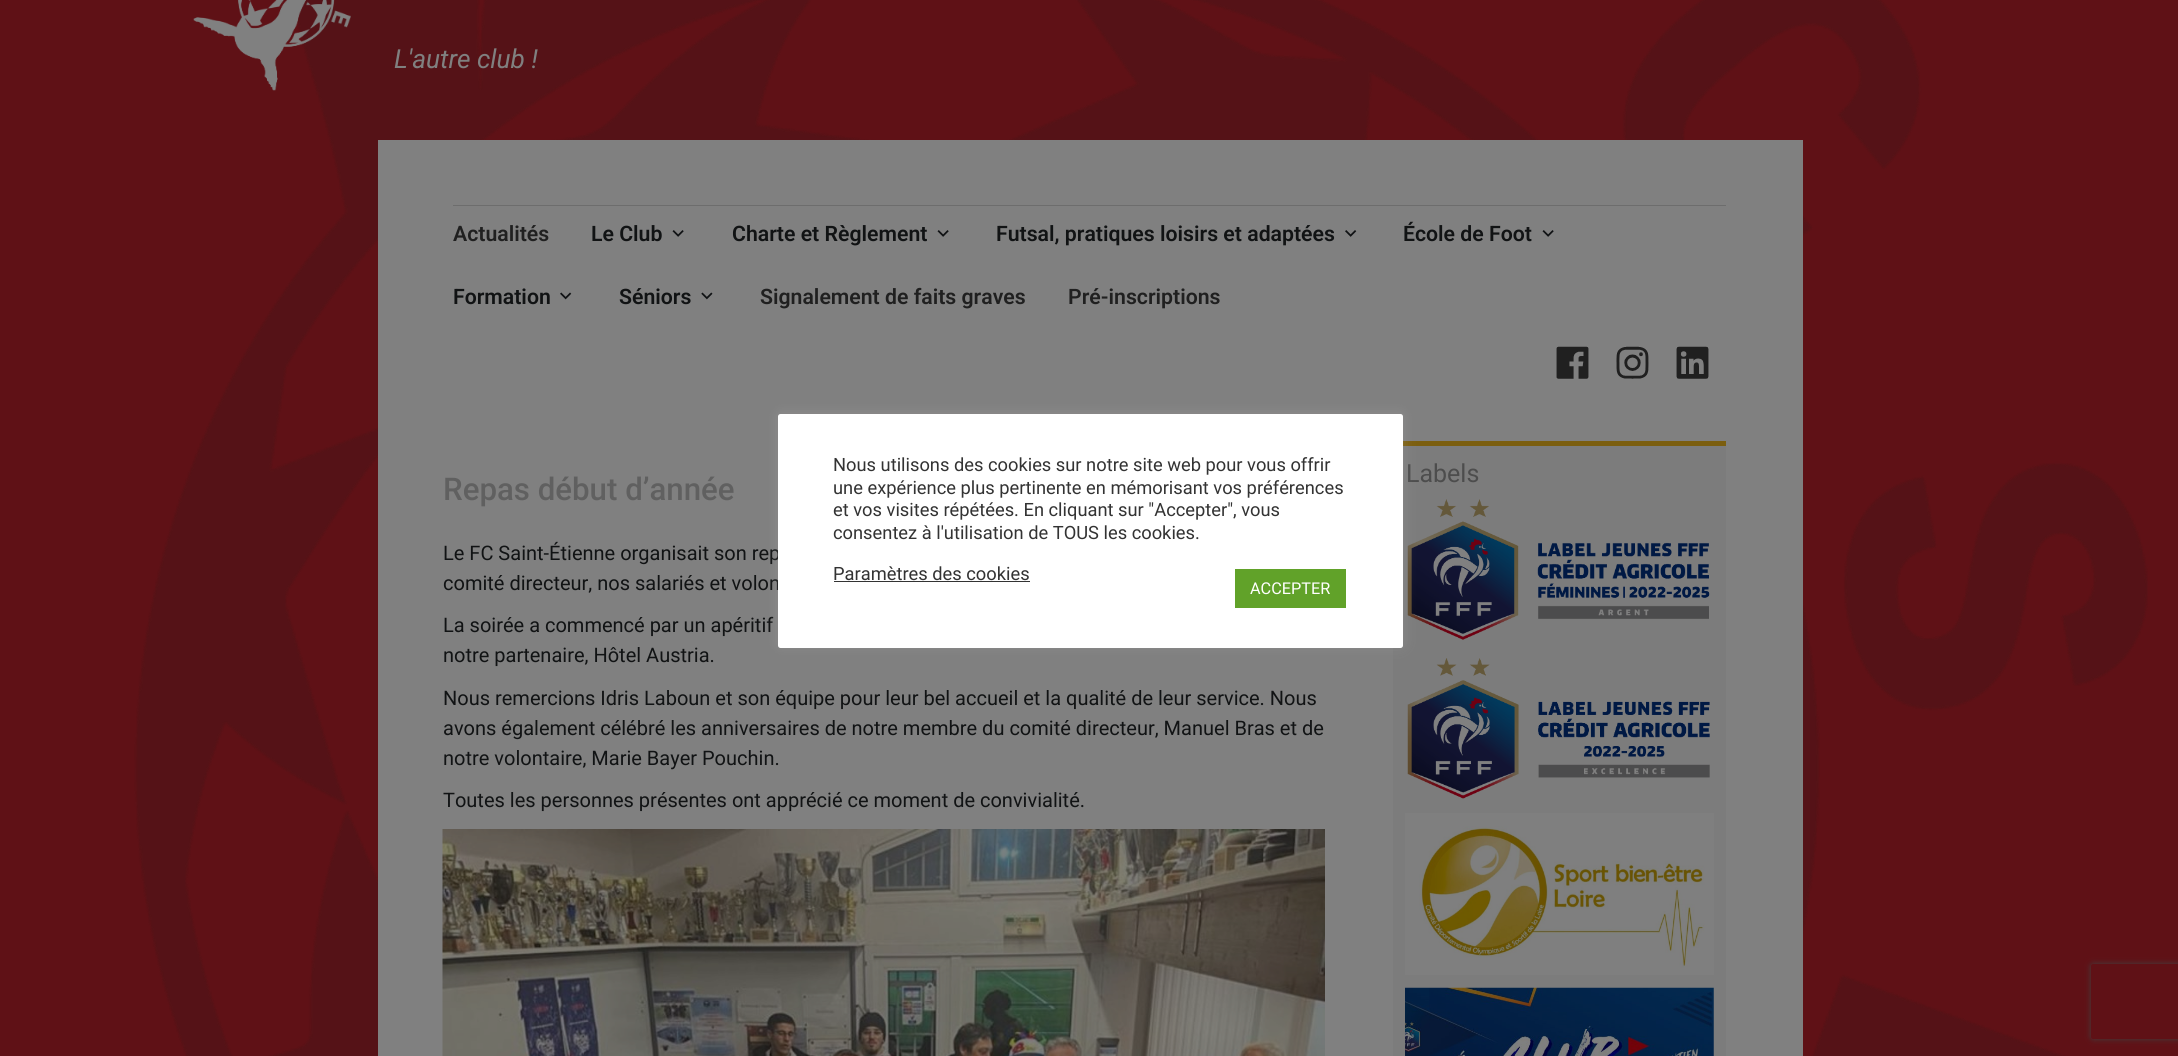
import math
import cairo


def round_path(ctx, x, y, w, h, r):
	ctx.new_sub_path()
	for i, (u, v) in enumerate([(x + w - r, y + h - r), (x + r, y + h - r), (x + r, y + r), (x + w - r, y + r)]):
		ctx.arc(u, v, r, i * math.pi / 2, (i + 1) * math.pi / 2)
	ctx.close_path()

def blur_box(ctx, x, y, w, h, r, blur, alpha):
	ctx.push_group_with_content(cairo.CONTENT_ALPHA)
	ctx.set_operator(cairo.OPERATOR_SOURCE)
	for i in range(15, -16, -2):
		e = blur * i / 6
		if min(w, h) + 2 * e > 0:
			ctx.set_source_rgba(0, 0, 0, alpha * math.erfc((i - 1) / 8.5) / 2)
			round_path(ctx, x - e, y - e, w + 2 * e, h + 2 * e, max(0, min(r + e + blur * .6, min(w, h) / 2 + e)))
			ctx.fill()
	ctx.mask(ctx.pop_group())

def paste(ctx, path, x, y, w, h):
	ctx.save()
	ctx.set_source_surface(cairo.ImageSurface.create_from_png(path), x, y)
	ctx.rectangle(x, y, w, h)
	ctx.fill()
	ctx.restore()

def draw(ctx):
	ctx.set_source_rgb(0.373, 0.067, 0.086)
	ctx.paint()
	paste(ctx, 'media/1.png', 134, 0, 2014, 1056)
	paste(ctx, 'media/2.png', 193, 0, 158, 91)
	ctx.select_font_face('Roboto', cairo.FONT_SLANT_ITALIC)
	ctx.set_font_size(26.25)
	ctx.set_source_rgb(0.502, 0.502, 0.502)
	ctx.move_to(394, 68)
	ctx.show_text('L\'autre club !')
	ctx.rectangle(378, 140, 1425, 916)
	ctx.fill()
	ctx.set_source_rgb(0.427, 0.427, 0.427)
	ctx.rectangle(453, 205, 1273, 1)
	ctx.fill()
	ctx.select_font_face('Roboto SemiBold')
	ctx.set_font_size(21.25)
	ctx.set_source_rgb(0.125, 0.125, 0.125)
	ctx.move_to(453, 241)
	ctx.show_text('Actualités')
	ctx.set_source_rgb(0.067, 0.075, 0.082)
	ctx.move_to(591, 241)
	ctx.show_text('Le Club')
	paste(ctx, 'media/3.png', 672, 230, 12, 7)
	ctx.move_to(732, 241)
	ctx.show_text('Charte et Règlement')
	paste(ctx, 'media/3.png', 937, 230, 12, 7)
	ctx.move_to(996, 241)
	ctx.show_text('Futsal, pratiques loisirs et adaptées')
	paste(ctx, 'media/4.png', 1345, 230, 12, 7)
	ctx.move_to(1403, 241)
	ctx.show_text('École de Foot')
	paste(ctx, 'media/3.png', 1542, 230, 12, 7)
	ctx.move_to(453, 304)
	ctx.show_text('Formation')
	paste(ctx, 'media/5.png', 560, 292, 12, 8)
	ctx.move_to(619, 304)
	ctx.show_text('Séniors')
	paste(ctx, 'media/6.png', 701, 292, 12, 8)
	ctx.set_source_rgb(0.125, 0.125, 0.125)
	ctx.move_to(760, 304)
	ctx.show_text('Signalement de faits graves')
	ctx.move_to(1068, 304)
	ctx.show_text('Pré-inscriptions')
	paste(ctx, 'media/7.png', 1556, 346, 33, 33)
	paste(ctx, 'media/8.png', 1616, 346, 33, 33)
	paste(ctx, 'media/9.png', 1676, 346, 33, 33)
	ctx.set_source_rgb(0.486, 0.486, 0.486)
	ctx.rectangle(1393, 446, 333, 610)
	ctx.fill()
	ctx.set_source_rgb(0.482, 0.369, 0.059)
	ctx.rectangle(1403, 441, 323, 5)
	ctx.fill()
	ctx.select_font_face('Roboto')
	ctx.set_font_size(25)
	ctx.set_source_rgb(0.302, 0.302, 0.302)
	ctx.move_to(1406, 482)
	ctx.show_text('Labels')
	paste(ctx, 'media/10.png', 1407, 499, 303, 141)
	paste(ctx, 'media/11.png', 1407, 658, 303, 141)
	paste(ctx, 'media/12.png', 1405, 813, 309, 162)
	paste(ctx, 'media/13.png', 1405, 987, 309, 69)
	ctx.select_font_face('Roboto Medium')
	ctx.set_font_size(31.25)
	ctx.set_source_rgb(0.376, 0.376, 0.376)
	ctx.move_to(443, 500)
	ctx.show_text('Repas début d’année')
	ctx.select_font_face('Roboto')
	ctx.set_font_size(20)
	ctx.set_source_rgb(0.067, 0.075, 0.082)
	for x, y, s in [
		(443, 560, 'Le FC Saint-Étienne organisait son rep'),
		(443, 590, 'comité directeur, nos salariés et volon'),
		(443, 632, 'La soirée a commencé par un apéritif'),
		(443, 662, 'notre partenaire, Hôtel Austria.'),
		(443, 705, 'Nous remercions Idris Laboun et son équipe pour leur bel accueil et la qualité de leur service. Nous'),
		(443, 735, 'avons également célébré les anniversaires de notre membre du comité directeur, Manuel Bras et de'),
		(443, 765, 'notre volontaire, Marie Bayer Pouchin.'),
		(443, 807, 'Toutes les personnes présentes ont apprécié ce moment de convivialité.'),
	]:
		ctx.move_to(x, y)
		ctx.show_text(s)
	paste(ctx, 'media/14.png', 442, 829, 883, 227)
	ctx.set_source_rgb(0.675, 0.671, 0.671)
	blur_box(ctx, 778, 413, 625, 233, 2.5, 6, 0.3)
	ctx.set_source_rgb(1, 1, 1)
	round_path(ctx, 778, 414, 625, 234, 2.5)
	ctx.fill()
	ctx.set_font_size(18.3)
	ctx.set_source_rgb(0.2, 0.2, 0.2)
	for x, y, s in [
		(833, 471, 'Nous utilisons des cookies sur notre site web pour vous offrir'),
		(833, 494, 'une expérience plus pertinente en mémorisant vos préférences'),
		(833, 516, 'et vos visites répétées. En cliquant sur "Accepter", vous'),
		(833, 539, 'consentez à l\'utilisation de TOUS les cookies.'),
		(833, 580, 'Paramètres des cookies'),
	]:
		ctx.move_to(x, y)
		ctx.show_text(s)
	ctx.rectangle(834, 581, 196, 1)
	ctx.fill()
	ctx.set_source_rgb(0.38, 0.635, 0.161)
	ctx.rectangle(1235, 569, 111, 39)
	ctx.fill()
	ctx.set_font_size(16.25)
	ctx.set_source_rgb(1, 1, 1)
	ctx.move_to(1250, 594)
	ctx.show_text('ACCEPTER')
	ctx.save()
	ctx.set_fill_rule(cairo.FILL_RULE_EVEN_ODD)
	ctx.new_path()
	ctx.move_to(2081, 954)
	ctx.line_to(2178, 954)
	ctx.line_to(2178, 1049)
	ctx.line_to(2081, 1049)
	ctx.close_path()
	ctx.move_to(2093.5, 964)
	ctx.line_to(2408.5, 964)
	ctx.curve_to(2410, 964, 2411, 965, 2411, 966.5)
	ctx.line_to(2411, 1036.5)
	ctx.curve_to(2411, 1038, 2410, 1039, 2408.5, 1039)
	ctx.line_to(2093.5, 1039)
	ctx.curve_to(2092, 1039, 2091, 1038, 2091, 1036.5)
	ctx.line_to(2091, 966.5)
	ctx.curve_to(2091, 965, 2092, 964, 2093.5, 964)
	ctx.close_path()
	ctx.clip()
	ctx.set_source_rgb(0.251, 0.251, 0.251)
	blur_box(ctx, 2091, 964, 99, 75, 2.5, 3, 1)
	ctx.restore()


surface = cairo.ImageSurface(cairo.FORMAT_RGB24, 2178, 1056)
ctx = cairo.Context(surface)
options = cairo.FontOptions()
options.set_hint_metrics(cairo.HINT_METRICS_OFF)
options.set_hint_style(cairo.HINT_STYLE_NONE)
ctx.set_font_options(options)
ctx.set_miter_limit(4)
draw(ctx)
surface.write_to_png('image.png')
